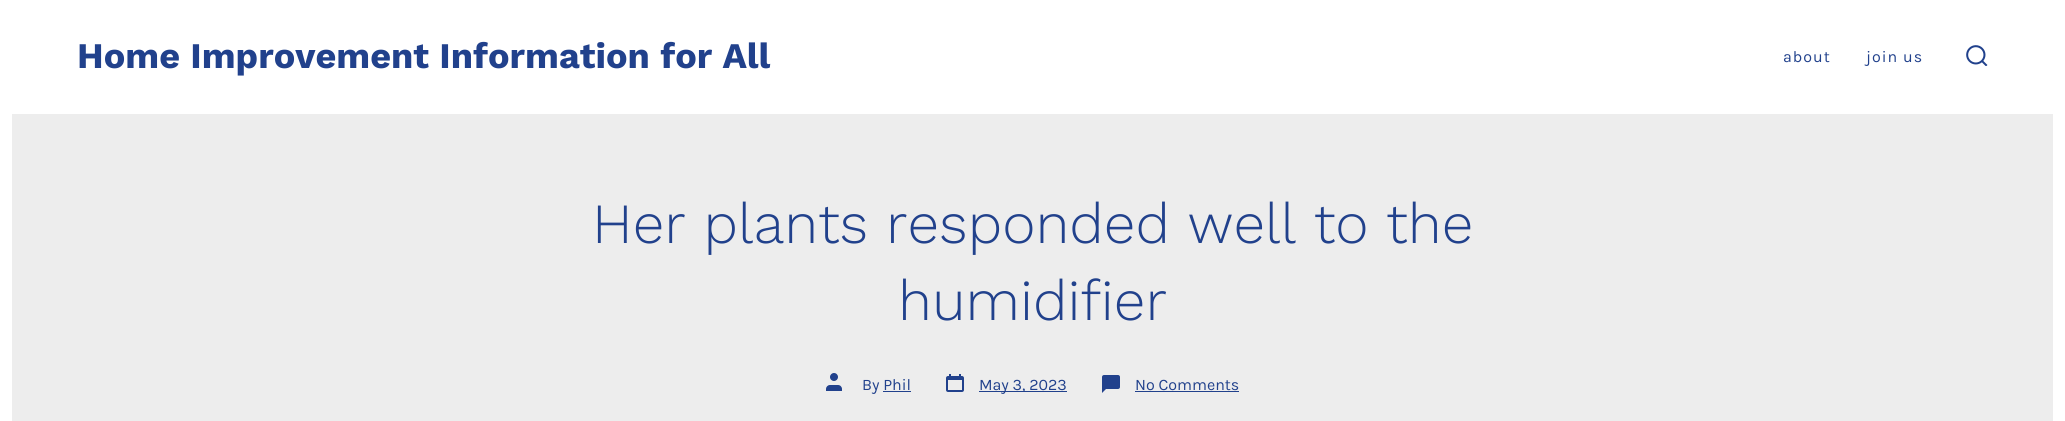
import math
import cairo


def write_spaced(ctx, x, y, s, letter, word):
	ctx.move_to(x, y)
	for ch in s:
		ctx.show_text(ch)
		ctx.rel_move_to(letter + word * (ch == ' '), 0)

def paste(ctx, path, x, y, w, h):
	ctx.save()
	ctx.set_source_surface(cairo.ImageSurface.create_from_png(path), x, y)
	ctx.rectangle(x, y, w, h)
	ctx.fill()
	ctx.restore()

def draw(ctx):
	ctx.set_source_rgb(0.929, 0.929, 0.929)
	ctx.paint()
	ctx.set_source_rgb(1, 1, 1)
	ctx.rectangle(2053, 0, 12, 421)
	ctx.rectangle(0, 0, 12, 421)
	ctx.rectangle(12, 0, 2041, 114)
	ctx.fill()
	ctx.select_font_face('Work Sans', cairo.FONT_SLANT_NORMAL, cairo.FONT_WEIGHT_BOLD)
	ctx.set_font_size(36)
	ctx.set_source_rgb(0.129, 0.255, 0.549)
	ctx.move_to(77, 68)
	ctx.show_text('Home Improvement Information for All')
	ctx.select_font_face('Karla')
	ctx.set_font_size(16)
	write_spaced(ctx, 1783, 62, 'about', 1, 0)
	write_spaced(ctx, 1866, 62, 'join us', 1, 0)
	paste(ctx, 'media/1.png', 1966, 45, 22, 21)
	ctx.select_font_face('Work Sans Light')
	ctx.set_font_size(56.75)
	ctx.move_to(592, 243)
	ctx.show_text('Her plants responded well to the')
	ctx.move_to(898, 320)
	ctx.show_text('humidifier')
	paste(ctx, 'media/2.png', 826, 373, 16, 18)
	ctx.select_font_face('Karla')
	ctx.set_font_size(16)
	ctx.move_to(862, 390)
	ctx.show_text('By Phil')
	ctx.rectangle(883, 391, 28, 1)
	ctx.fill()
	paste(ctx, 'media/3.png', 946, 374, 18, 18)
	ctx.rectangle(979, 391, 88, 1)
	ctx.fill()
	ctx.move_to(979, 390)
	ctx.show_text('May 3, 2023')
	paste(ctx, 'media/4.png', 1102, 375, 18, 18)
	ctx.move_to(1135, 390)
	ctx.show_text('No Comments')
	ctx.rectangle(1135, 391, 104, 1)
	ctx.fill()


surface = cairo.ImageSurface(cairo.FORMAT_RGB24, 2065, 421)
ctx = cairo.Context(surface)
options = cairo.FontOptions()
options.set_hint_metrics(cairo.HINT_METRICS_OFF)
options.set_hint_style(cairo.HINT_STYLE_NONE)
ctx.set_font_options(options)
ctx.set_miter_limit(4)
draw(ctx)
surface.write_to_png('image.png')
